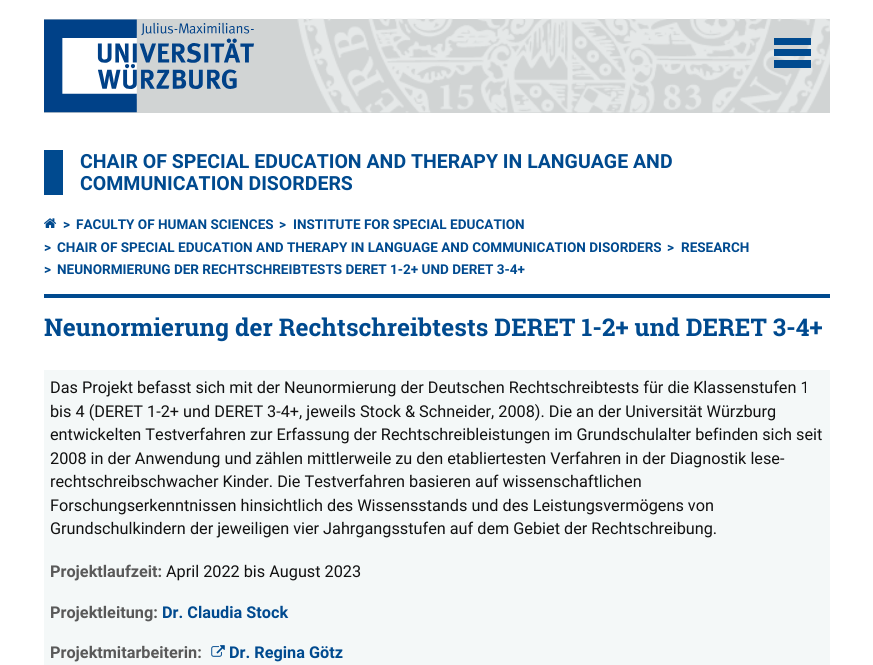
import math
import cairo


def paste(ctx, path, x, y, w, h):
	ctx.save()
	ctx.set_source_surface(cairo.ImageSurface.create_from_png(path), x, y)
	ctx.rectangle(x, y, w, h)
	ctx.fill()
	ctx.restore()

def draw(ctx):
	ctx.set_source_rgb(1, 1, 1)
	ctx.paint()
	ctx.set_source_rgb(0.82, 0.831, 0.831)
	ctx.rectangle(44, 19, 786, 94)
	ctx.fill()
	paste(ctx, 'media/1.png', 297, 18, 533, 95)
	paste(ctx, 'media/2.png', 44, 19, 210, 94)
	ctx.set_source_rgb(0, 0.29, 0.561)
	ctx.rectangle(774, 38, 37, 7)
	ctx.rectangle(774, 49, 37, 7)
	ctx.rectangle(774, 60, 37, 8)
	ctx.rectangle(44, 150, 19, 45)
	ctx.fill()
	ctx.select_font_face('Roboto', cairo.FONT_SLANT_NORMAL, cairo.FONT_WEIGHT_BOLD)
	ctx.set_font_size(19.5)
	ctx.move_to(80, 168)
	ctx.show_text('CHAIR OF SPECIAL EDUCATION AND THERAPY IN LANGUAGE AND')
	ctx.move_to(80, 190)
	ctx.show_text('COMMUNICATION DISORDERS')
	ctx.rectangle(44, 294, 786, 4)
	ctx.fill()
	paste(ctx, 'media/3.png', 44, 218, 13, 10)
	ctx.set_font_size(13.55)
	for x, y, s in [
		(63, 229, '>'),
		(76, 229, 'FACULTY OF HUMAN SCIENCES'),
		(279, 229, '>'),
		(293, 229, 'INSTITUTE FOR SPECIAL EDUCATION'),
		(44, 252, '>'),
		(57, 252, 'CHAIR OF SPECIAL EDUCATION AND THERAPY IN LANGUAGE AND COMMUNICATION DISORDERS'),
		(667, 252, '>'),
		(681, 252, 'RESEARCH'),
		(44, 274, '>'),
		(57, 274, 'NEUNORMIERUNG DER RECHTSCHREIBTESTS DERET 1-2+ UND DERET 3-4+'),
	]:
		ctx.move_to(x, y)
		ctx.show_text(s)
	ctx.select_font_face('Roboto Slab', cairo.FONT_SLANT_NORMAL, cairo.FONT_WEIGHT_BOLD)
	ctx.set_font_size(24.4)
	ctx.move_to(44, 336)
	ctx.show_text('Neunormierung der Rechtschreibtests DERET 1-2+ und DERET 3-4+')
	ctx.set_source_rgb(0.957, 0.969, 0.969)
	ctx.rectangle(44, 370, 786, 295)
	ctx.fill()
	ctx.select_font_face('Roboto')
	ctx.set_font_size(16.25)
	ctx.set_source_rgb(0.067, 0.067, 0.067)
	for x, y, s in [
		(50, 393, 'Das Projekt befasst sich mit der Neunormierung der Deutschen Rechtschreibtests für die Klassenstufen 1'),
		(50, 417, 'bis 4 (DERET 1-2+ und DERET 3-4+, jeweils Stock & Schneider, 2008). Die an der Universität Würzburg'),
		(50, 440, 'entwickelten Testverfahren zur Erfassung der Rechtschreibleistungen im Grundschulalter befinden sich seit'),
		(50, 464, '2008 in der Anwendung und zählen mittlerweile zu den etabliertesten Verfahren in der Diagnostik lese-'),
		(50, 487, 'rechtschreibschwacher Kinder. Die Testverfahren basieren auf wissenschaftlichen'),
		(50, 511, 'Forschungserkenntnissen hinsichtlich des Wissensstands und des Leistungsvermögens von'),
		(50, 534, 'Grundschulkindern der jeweiligen vier Jahrgangsstufen auf dem Gebiet der Rechtschreibung.'),
	]:
		ctx.move_to(x, y)
		ctx.show_text(s)
	ctx.select_font_face('Roboto', cairo.FONT_SLANT_NORMAL, cairo.FONT_WEIGHT_BOLD)
	ctx.set_source_rgb(0.349, 0.349, 0.349)
	ctx.move_to(50, 577)
	ctx.show_text('Projektlaufzeit:')
	ctx.select_font_face('Roboto')
	ctx.set_source_rgb(0.067, 0.067, 0.067)
	ctx.move_to(166, 577)
	ctx.show_text('April 2022 bis August 2023')
	ctx.select_font_face('Roboto', cairo.FONT_SLANT_NORMAL, cairo.FONT_WEIGHT_BOLD)
	ctx.set_source_rgb(0.349, 0.349, 0.349)
	ctx.move_to(50, 618)
	ctx.show_text('Projektleitung:')
	ctx.set_source_rgb(0, 0.29, 0.561)
	ctx.move_to(162, 618)
	ctx.show_text('Dr. Claudia Stock')
	ctx.set_source_rgb(0.349, 0.349, 0.349)
	ctx.move_to(50, 658)
	ctx.show_text('Projektmitarbeiterin:')
	paste(ctx, 'media/4.png', 211, 645, 14, 12)
	ctx.set_source_rgb(0, 0.29, 0.561)
	ctx.move_to(229, 658)
	ctx.show_text('Dr. Regina Götz')


surface = cairo.ImageSurface(cairo.FORMAT_RGB24, 873, 665)
ctx = cairo.Context(surface)
options = cairo.FontOptions()
options.set_hint_metrics(cairo.HINT_METRICS_OFF)
options.set_hint_style(cairo.HINT_STYLE_NONE)
ctx.set_font_options(options)
ctx.set_miter_limit(4)
draw(ctx)
surface.write_to_png('image.png')
